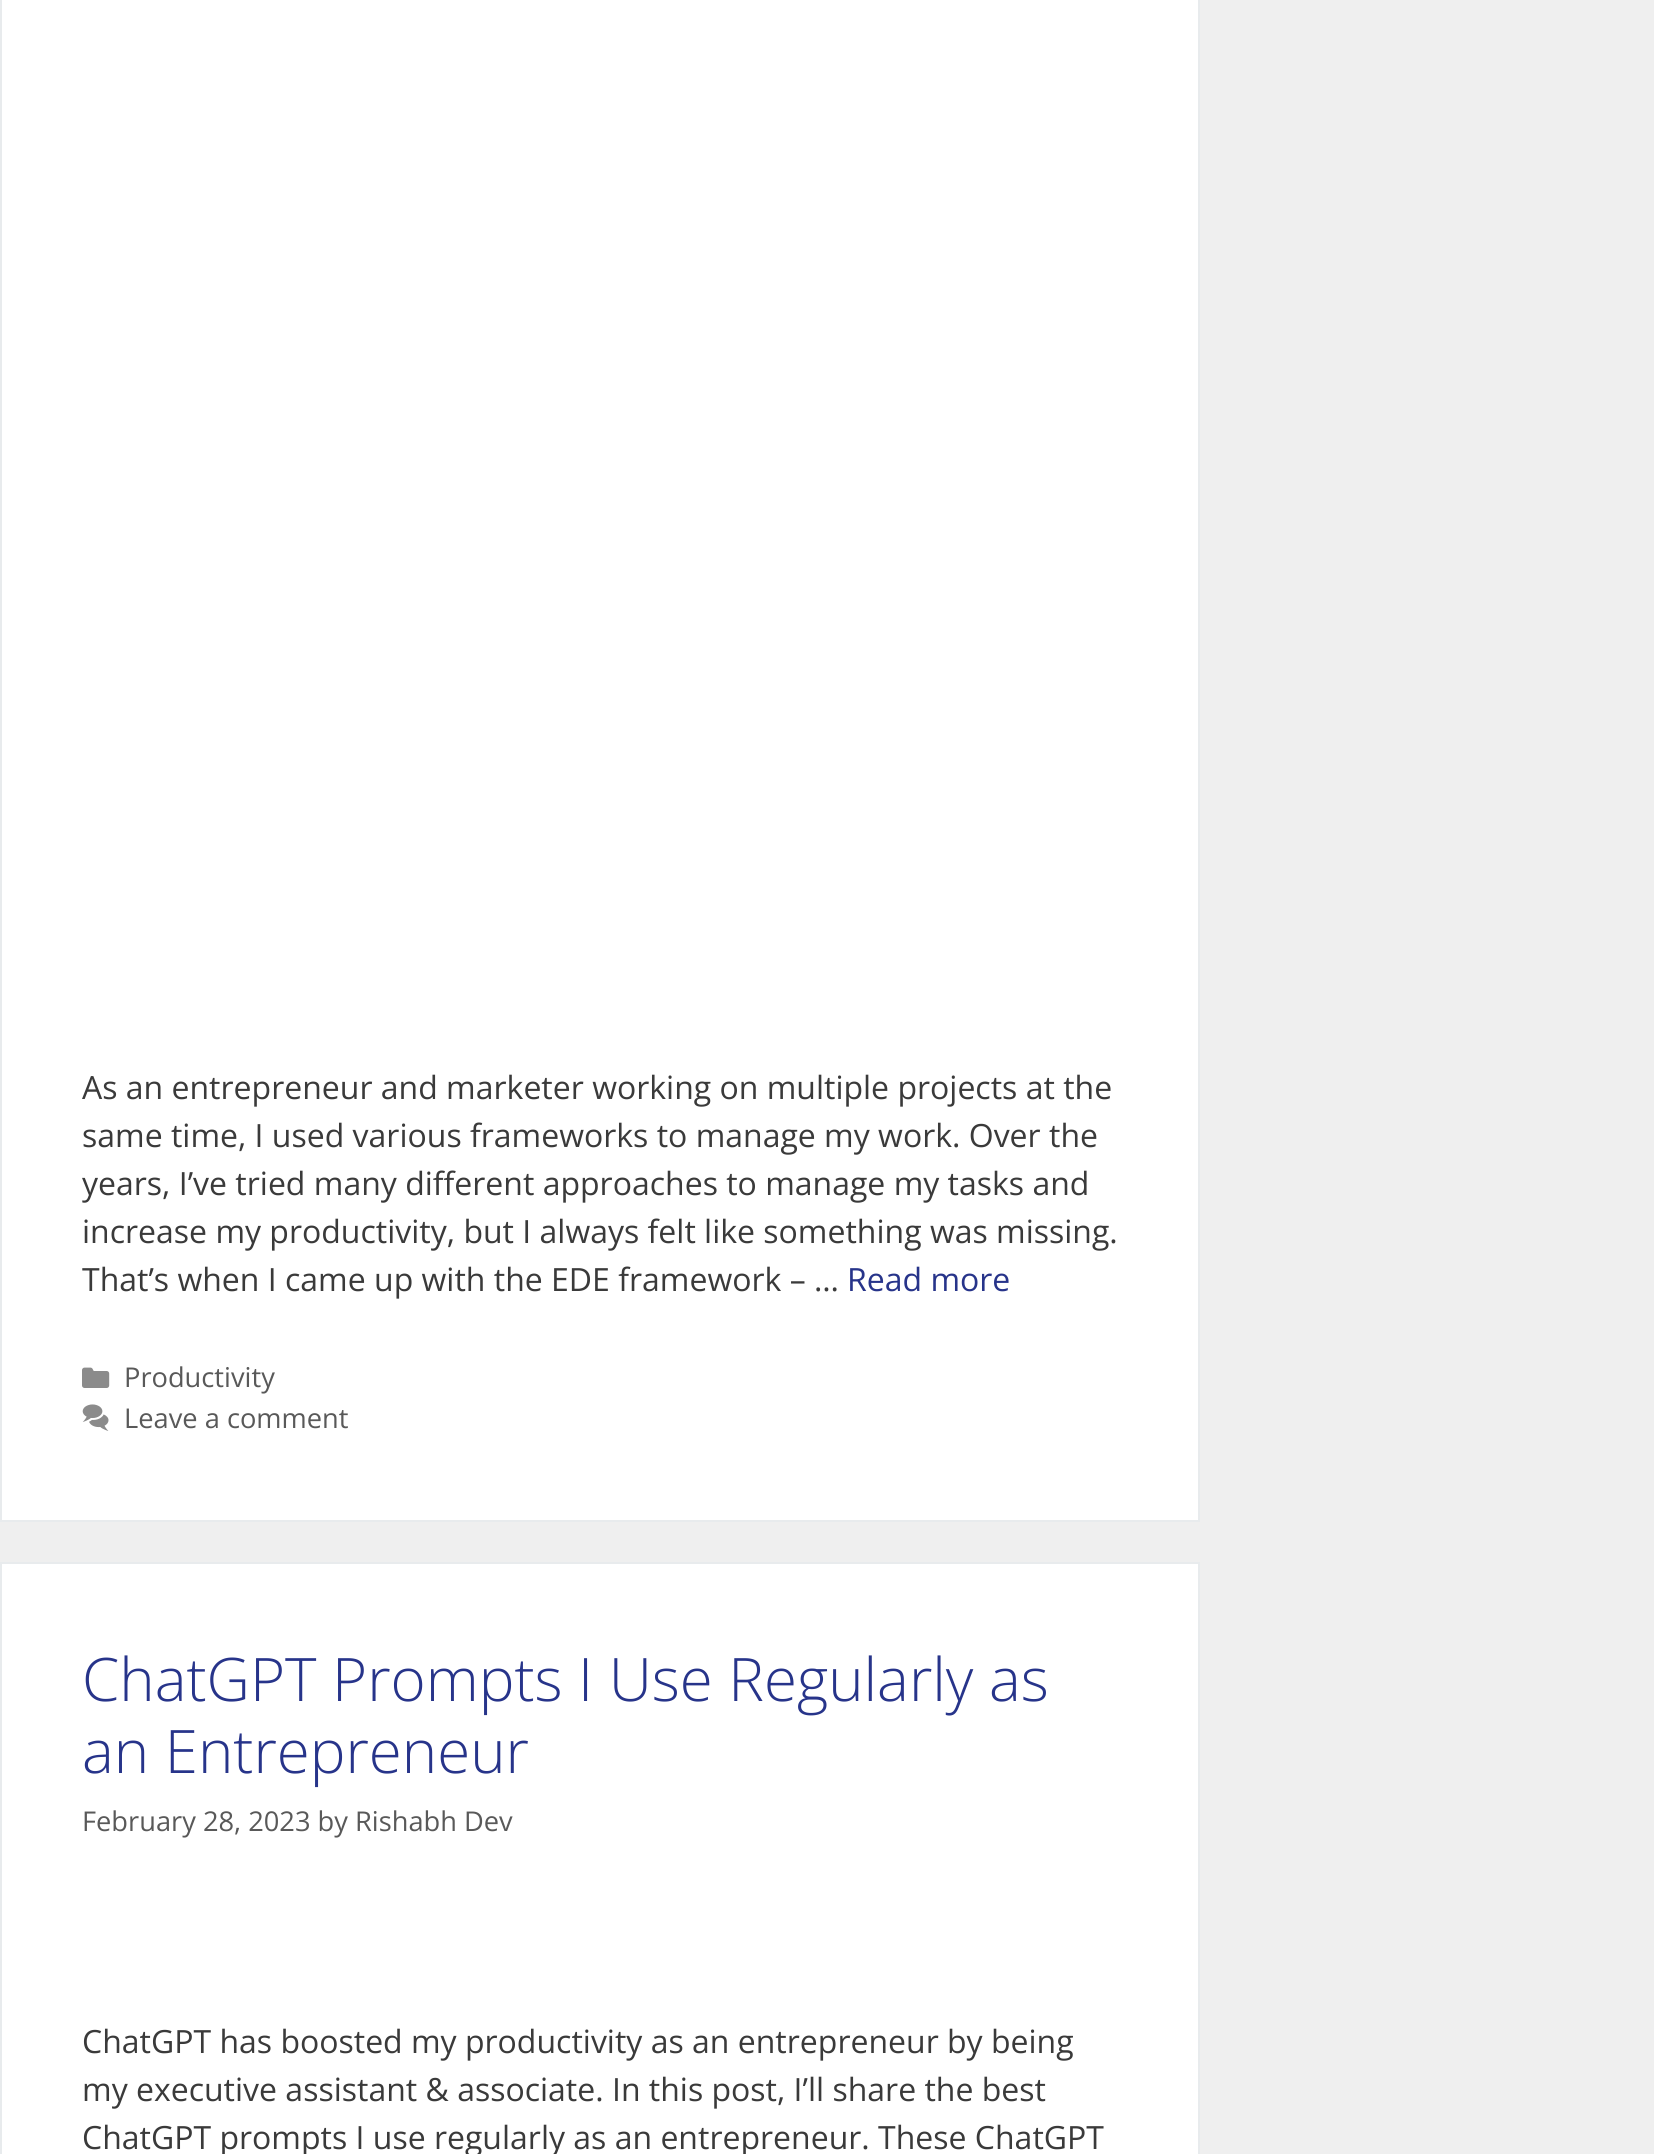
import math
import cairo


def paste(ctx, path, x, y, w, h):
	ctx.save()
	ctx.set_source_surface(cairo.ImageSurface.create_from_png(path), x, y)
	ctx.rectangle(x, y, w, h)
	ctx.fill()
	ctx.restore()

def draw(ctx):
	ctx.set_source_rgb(0.937, 0.937, 0.937)
	ctx.paint()
	ctx.set_source_rgb(1, 1, 1)
	ctx.rectangle(1, -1, 1198, 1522)
	ctx.fill_preserve()
	ctx.set_source_rgb(0.91, 0.918, 0.929)
	ctx.stroke()
	ctx.select_font_face('Open Sans')
	ctx.set_font_size(32)
	ctx.set_source_rgb(0.227, 0.227, 0.227)
	for x, y, s in [
		(82, 1099, 'As an entrepreneur and marketer working on multiple projects at the'),
		(82, 1147, 'same time, I used various frameworks to manage my work. Over the'),
		(82, 1195, 'years, I’ve tried many different approaches to manage my tasks and'),
		(82, 1243, 'increase my productivity, but I always felt like something was missing.'),
		(82, 1291, 'That’s when I came up with the EDE framework – …'),
	]:
		ctx.move_to(x, y)
		ctx.show_text(s)
	ctx.set_source_rgb(0.153, 0.204, 0.541)
	ctx.move_to(847, 1291)
	ctx.show_text('Read more')
	paste(ctx, 'media/1.png', 82, 1367, 28, 21)
	ctx.set_font_size(27.25)
	ctx.set_source_rgb(0.349, 0.349, 0.349)
	ctx.move_to(124, 1387)
	ctx.show_text('Productivity')
	paste(ctx, 'media/2.png', 82, 1404, 27, 27)
	ctx.move_to(124, 1428)
	ctx.show_text('Leave a comment')
	ctx.set_source_rgb(1, 1, 1)
	ctx.rectangle(1, 1563, 1198, 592)
	ctx.fill_preserve()
	ctx.set_source_rgb(0.91, 0.918, 0.929)
	ctx.stroke()
	ctx.select_font_face('Open Sans Light')
	ctx.set_font_size(60)
	ctx.set_source_rgb(0.153, 0.204, 0.541)
	ctx.move_to(82, 1701)
	ctx.show_text('ChatGPT Prompts I Use Regularly as')
	ctx.move_to(82, 1773)
	ctx.show_text('an Entrepreneur')
	ctx.select_font_face('Open Sans')
	ctx.set_font_size(27.25)
	ctx.set_source_rgb(0.349, 0.349, 0.349)
	ctx.move_to(82, 1831)
	ctx.show_text('February 28, 2023 by Rishabh Dev')
	ctx.set_font_size(32)
	ctx.set_source_rgb(0.227, 0.227, 0.227)
	for x, y, s in [
		(82, 2053, 'ChatGPT has boosted my productivity as an entrepreneur by being'),
		(82, 2101, 'my executive assistant & associate. In this post, I’ll share the best'),
		(82, 2149, 'ChatGPT prompts I use regularly as an entrepreneur. These ChatGPT'),
	]:
		ctx.move_to(x, y)
		ctx.show_text(s)


surface = cairo.ImageSurface(cairo.FORMAT_RGB24, 1654, 2154)
ctx = cairo.Context(surface)
options = cairo.FontOptions()
options.set_hint_metrics(cairo.HINT_METRICS_OFF)
options.set_hint_style(cairo.HINT_STYLE_NONE)
ctx.set_font_options(options)
ctx.set_miter_limit(4)
draw(ctx)
surface.write_to_png('image.png')
